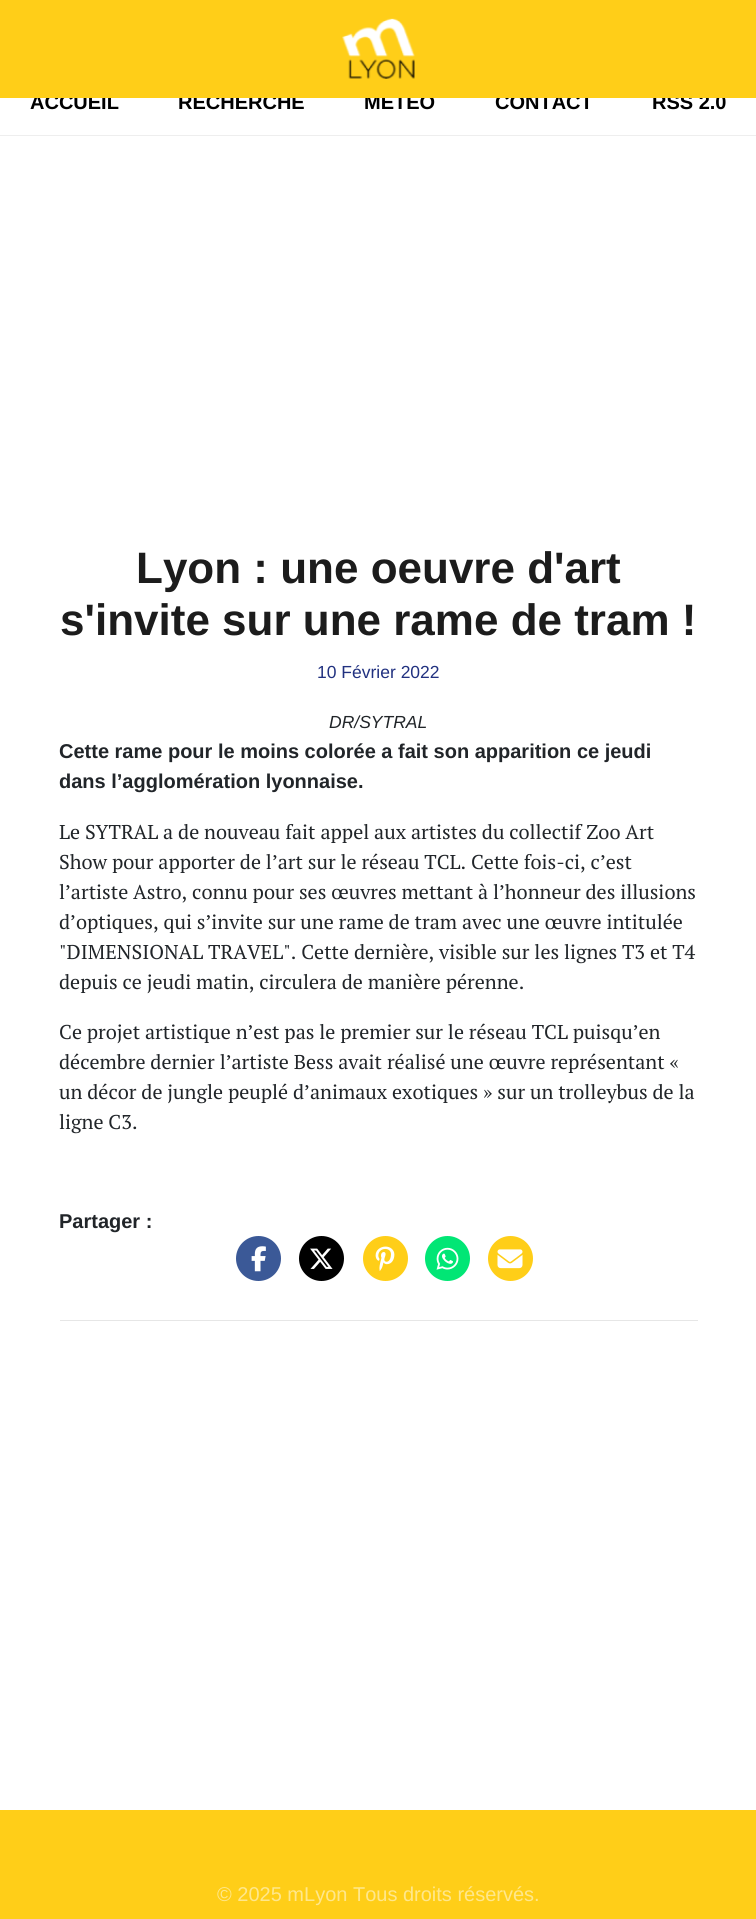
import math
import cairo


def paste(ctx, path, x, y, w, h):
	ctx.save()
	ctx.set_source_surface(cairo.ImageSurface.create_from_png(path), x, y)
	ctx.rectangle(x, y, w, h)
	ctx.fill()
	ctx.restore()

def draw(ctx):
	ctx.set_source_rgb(1, 1, 1)
	ctx.paint()
	ctx.select_font_face('Liberation Sans', cairo.FONT_SLANT_NORMAL, cairo.FONT_WEIGHT_BOLD)
	ctx.set_font_size(20)
	ctx.set_source_rgb(0, 0, 0)
	for x, y, s in [
		(30, 109, 'ACCUEIL'),
		(178, 109, 'RECHERCHE'),
		(364, 109, 'MÉTÉO'),
		(495, 109, 'CONTACT'),
		(652, 109, 'RSS 2.0'),
	]:
		ctx.move_to(x, y)
		ctx.show_text(s)
	ctx.set_source_rgb(1, 0.808, 0.094)
	ctx.rectangle(0, 0, 756, 98)
	ctx.fill()
	paste(ctx, 'media/1.png', 342, 18, 73, 61)
	ctx.set_source_rgb(0.933, 0.933, 0.933)
	ctx.rectangle(0, 135, 756, 1)
	ctx.fill()
	ctx.set_font_size(44)
	ctx.set_source_rgb(0.11, 0.11, 0.11)
	ctx.move_to(136, 583)
	ctx.show_text('Lyon : une oeuvre d\'art')
	ctx.move_to(60, 635)
	ctx.show_text('s\'invite sur une rame de tram !')
	ctx.select_font_face('Liberation Sans')
	ctx.set_font_size(17.5)
	ctx.set_source_rgb(0.129, 0.192, 0.502)
	ctx.move_to(317, 678)
	ctx.show_text('10 Février 2022')
	ctx.select_font_face('Liberation Sans', cairo.FONT_SLANT_ITALIC)
	ctx.set_source_rgb(0.129, 0.145, 0.161)
	ctx.move_to(329, 728)
	ctx.show_text('DR/SYTRAL')
	ctx.select_font_face('Liberation Sans', cairo.FONT_SLANT_NORMAL, cairo.FONT_WEIGHT_BOLD)
	ctx.set_font_size(20)
	ctx.move_to(59, 758)
	ctx.show_text('Cette rame pour le moins colorée a fait son apparition ce jeudi')
	ctx.move_to(59, 788)
	ctx.show_text('dans l’agglomération lyonnaise.')
	ctx.select_font_face('PT Serif')
	for x, y, s in [
		(59, 839, 'Le SYTRAL a de nouveau fait appel aux artistes du collectif Zoo Art'),
		(59, 869, 'Show pour apporter de l’art sur le réseau TCL. Cette fois-ci, c’est'),
		(59, 899, 'l’artiste Astro, connu pour ses œuvres mettant à l’honneur des illusions'),
		(59, 929, 'd’optiques, qui s’invite sur une rame de tram avec une œuvre intitulée'),
		(59, 959, '"DIMENSIONAL TRAVEL". Cette dernière, visible sur les lignes T3 et T4'),
		(59, 989, 'depuis ce jeudi matin, circulera de manière pérenne.'),
		(59, 1039, 'Ce projet artistique n’est pas le premier sur le réseau TCL puisqu’en'),
		(59, 1069, 'décembre dernier l’artiste Bess avait réalisé une œuvre représentant «'),
		(59, 1099, 'un décor de jungle peuplé d’animaux exotiques » sur un trolleybus de la'),
		(59, 1129, 'ligne C3.'),
	]:
		ctx.move_to(x, y)
		ctx.show_text(s)
	ctx.select_font_face('Liberation Sans', cairo.FONT_SLANT_NORMAL, cairo.FONT_WEIGHT_BOLD)
	ctx.move_to(59, 1228)
	ctx.show_text('Partager :')
	ctx.set_source_rgb(0.231, 0.349, 0.592)
	ctx.new_path()
	ctx.arc(258.5, 1258.5, 22.5, 0, 2 * math.pi)
	ctx.fill()
	paste(ctx, 'media/2.png', 251, 1246, 15, 26)
	ctx.set_source_rgb(0, 0, 0)
	ctx.arc(321.5, 1258.5, 22.5, 0, 2 * math.pi)
	ctx.fill()
	paste(ctx, 'media/3.png', 310, 1248, 23, 21)
	ctx.set_source_rgb(1, 0.808, 0.094)
	ctx.arc(385.5, 1258.5, 22.5, 0, 2 * math.pi)
	ctx.fill()
	paste(ctx, 'media/4.png', 375, 1246, 20, 25)
	ctx.set_source_rgb(0.004, 0.902, 0.459)
	ctx.arc(447.5, 1258.5, 22.5, 0, 2 * math.pi)
	ctx.fill()
	paste(ctx, 'media/5.png', 436, 1247, 23, 23)
	ctx.set_source_rgb(1, 0.808, 0.094)
	ctx.arc(510.5, 1258.5, 22.5, 0, 2 * math.pi)
	ctx.fill()
	paste(ctx, 'media/6.png', 497, 1249, 26, 20)
	ctx.set_source_rgb(0.902, 0.902, 0.902)
	ctx.rectangle(60, 1320, 638, 1)
	ctx.fill()
	ctx.set_source_rgb(1, 0.808, 0.094)
	ctx.rectangle(0, 1810, 756, 109)
	ctx.fill()
	ctx.select_font_face('Liberation Sans')
	ctx.set_source_rgb(1, 0.906, 0.549)
	ctx.move_to(217, 1901)
	ctx.show_text('© 2025 mLyon Tous droits réservés.')


surface = cairo.ImageSurface(cairo.FORMAT_RGB24, 756, 1919)
ctx = cairo.Context(surface)
options = cairo.FontOptions()
options.set_hint_metrics(cairo.HINT_METRICS_OFF)
options.set_hint_style(cairo.HINT_STYLE_NONE)
ctx.set_font_options(options)
ctx.set_miter_limit(4)
draw(ctx)
surface.write_to_png('image.png')
